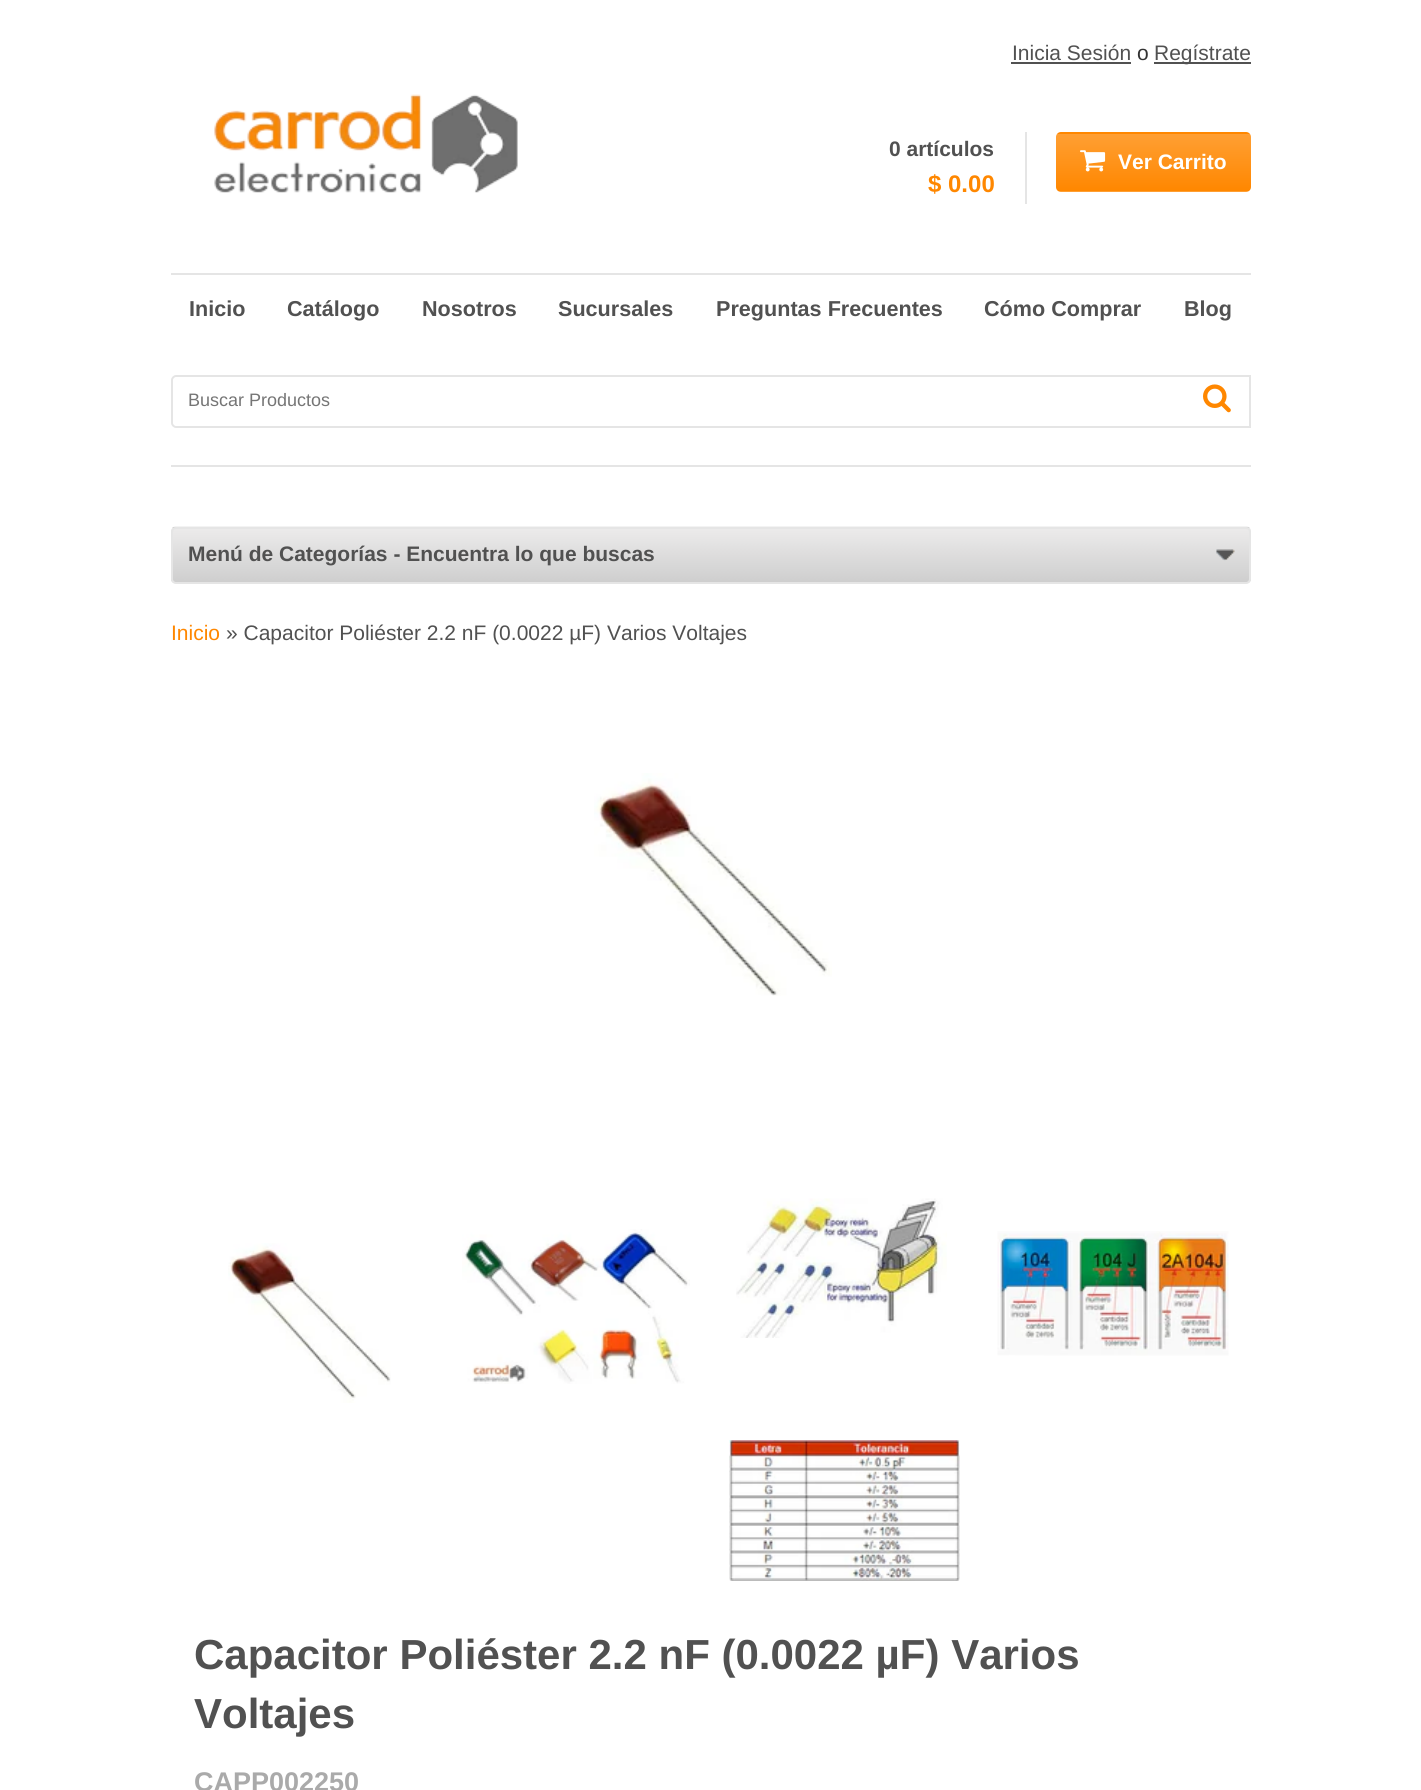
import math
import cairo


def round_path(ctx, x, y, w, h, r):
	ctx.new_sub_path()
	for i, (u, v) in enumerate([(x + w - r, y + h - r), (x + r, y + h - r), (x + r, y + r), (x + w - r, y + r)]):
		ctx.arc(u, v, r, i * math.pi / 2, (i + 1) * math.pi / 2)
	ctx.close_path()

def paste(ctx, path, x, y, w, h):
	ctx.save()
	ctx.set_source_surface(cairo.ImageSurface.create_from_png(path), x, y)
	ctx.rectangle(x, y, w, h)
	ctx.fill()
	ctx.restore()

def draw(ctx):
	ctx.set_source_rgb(1, 1, 1)
	ctx.paint()
	ctx.select_font_face('Liberation Sans')
	ctx.set_font_size(21)
	ctx.set_source_rgb(0.318, 0.318, 0.318)
	ctx.move_to(1012, 60)
	ctx.show_text('Inicia Sesión')
	ctx.rectangle(1011, 62, 120, 2)
	ctx.fill()
	ctx.set_source_rgb(0.2, 0.2, 0.2)
	ctx.move_to(1137, 60)
	ctx.show_text('o')
	ctx.set_source_rgb(0.318, 0.318, 0.318)
	ctx.rectangle(1154, 62, 97, 2)
	ctx.fill()
	ctx.move_to(1154, 60)
	ctx.show_text('Regístrate')
	paste(ctx, 'media/1.png', 214, 94, 304, 99)
	ctx.set_source_rgb(0.898, 0.898, 0.898)
	ctx.rectangle(1025, 132, 2, 72)
	ctx.fill()
	ctx.select_font_face('Liberation Sans', cairo.FONT_SLANT_NORMAL, cairo.FONT_WEIGHT_BOLD)
	ctx.set_source_rgb(0.318, 0.318, 0.318)
	ctx.move_to(889, 156)
	ctx.show_text('0 artículos')
	ctx.set_font_size(24)
	ctx.set_source_rgb(1, 0.529, 0)
	ctx.move_to(928, 192)
	ctx.show_text('$ 0.00')
	ctx.save()
	round_path(ctx, 1056, 132, 195, 60, 5)
	ctx.clip()
	gradient = cairo.LinearGradient(1154, 76, 1154, 134)
	gradient.add_color_stop_rgba(0, 1, 0.624, 0.2, 1)
	gradient.add_color_stop_rgba(1, 1, 0.529, 0, 1)
	ctx.set_source(gradient)
	ctx.rectangle(1056, 132, 195, 2)
	ctx.fill()
	gradient = cairo.LinearGradient(1154, 134, 1154, 191)
	gradient.add_color_stop_rgba(0, 1, 0.624, 0.2, 1)
	gradient.add_color_stop_rgba(1, 1, 0.529, 0, 1)
	ctx.set_source(gradient)
	ctx.rectangle(1056, 134, 195, 57)
	ctx.fill()
	gradient = cairo.LinearGradient(1154, 191, 1154, 248)
	gradient.add_color_stop_rgba(0, 1, 0.624, 0.2, 1)
	gradient.add_color_stop_rgba(1, 1, 0.529, 0, 1)
	ctx.set_source(gradient)
	ctx.rectangle(1056, 191, 195, 1)
	ctx.fill()
	ctx.restore()
	paste(ctx, 'media/2.png', 1080, 150, 26, 22)
	ctx.set_font_size(21)
	ctx.set_source_rgb(1, 1, 1)
	ctx.move_to(1118, 169)
	ctx.show_text('Ver Carrito')
	ctx.set_source_rgb(0.898, 0.898, 0.898)
	ctx.rectangle(171, 273, 1080, 2)
	ctx.fill()
	ctx.rectangle(171, 465, 1080, 2)
	ctx.fill()
	ctx.set_font_size(21.6)
	ctx.set_source_rgb(0.318, 0.318, 0.318)
	for x, y, s in [
		(189, 316, 'Inicio'),
		(287, 316, 'Catálogo'),
		(422, 316, 'Nosotros'),
		(558, 316, 'Sucursales'),
		(716, 316, 'Preguntas Frecuentes'),
		(984, 316, 'Cómo Comprar'),
		(1184, 316, 'Blog'),
	]:
		ctx.move_to(x, y)
		ctx.show_text(s)
	ctx.new_path()
	ctx.move_to(176, 376)
	ctx.line_to(1250, 376)
	ctx.line_to(1250, 427)
	ctx.line_to(176, 427)
	ctx.curve_to(174, 427, 172, 425, 172, 423)
	ctx.line_to(172, 380)
	ctx.curve_to(172, 378, 174, 376, 176, 376)
	ctx.close_path()
	ctx.set_source_rgb(0.898, 0.898, 0.898)
	ctx.stroke()
	ctx.select_font_face('Liberation Sans')
	ctx.set_font_size(18)
	ctx.set_source_rgb(0.459, 0.459, 0.459)
	ctx.move_to(188, 406)
	ctx.show_text('Buscar Productos')
	paste(ctx, 'media/3.png', 1203, 384, 28, 29)
	paste(ctx, 'media/4.png', 171, 526, 1080, 58)
	round_path(ctx, 172, 528, 1078, 55, 4)
	ctx.set_source_rgb(0.898, 0.898, 0.898)
	ctx.stroke()
	ctx.select_font_face('Liberation Sans', cairo.FONT_SLANT_NORMAL, cairo.FONT_WEIGHT_BOLD)
	ctx.set_font_size(21)
	ctx.set_source_rgb(0.318, 0.318, 0.318)
	ctx.move_to(188, 561)
	ctx.show_text('Menú de Categorías - Encuentra lo que buscas')
	ctx.select_font_face('Liberation Sans')
	ctx.set_source_rgb(1, 0.529, 0)
	ctx.move_to(171, 640)
	ctx.show_text('Inicio')
	ctx.set_source_rgb(0.318, 0.318, 0.318)
	ctx.move_to(226, 640)
	ctx.show_text('» Capacitor Poliéster 2.2 nF (0.0022 µF) Varios Voltajes')
	paste(ctx, 'media/5.png', 594, 773, 238, 223)
	paste(ctx, 'media/6.png', 228, 1243, 163, 160)
	paste(ctx, 'media/7.png', 462, 1229, 228, 155)
	paste(ctx, 'media/8.png', 736, 1198, 211, 140)
	paste(ctx, 'media/9.png', 997, 1231, 232, 125)
	paste(ctx, 'media/10.png', 729, 1440, 231, 141)
	ctx.select_font_face('Liberation Sans', cairo.FONT_SLANT_NORMAL, cairo.FONT_WEIGHT_BOLD)
	ctx.set_font_size(42)
	ctx.move_to(194, 1669)
	ctx.show_text('Capacitor Poliéster 2.2 nF (0.0022 µF) Varios')
	ctx.move_to(194, 1728)
	ctx.show_text('Voltajes')
	ctx.set_font_size(27)
	ctx.set_source_rgb(0.667, 0.667, 0.667)
	ctx.move_to(194, 1791)
	ctx.show_text('CAPP002250')


surface = cairo.ImageSurface(cairo.FORMAT_RGB24, 1421, 1790)
ctx = cairo.Context(surface)
options = cairo.FontOptions()
options.set_hint_metrics(cairo.HINT_METRICS_OFF)
options.set_hint_style(cairo.HINT_STYLE_NONE)
ctx.set_font_options(options)
ctx.set_miter_limit(4)
draw(ctx)
surface.write_to_png('image.png')
